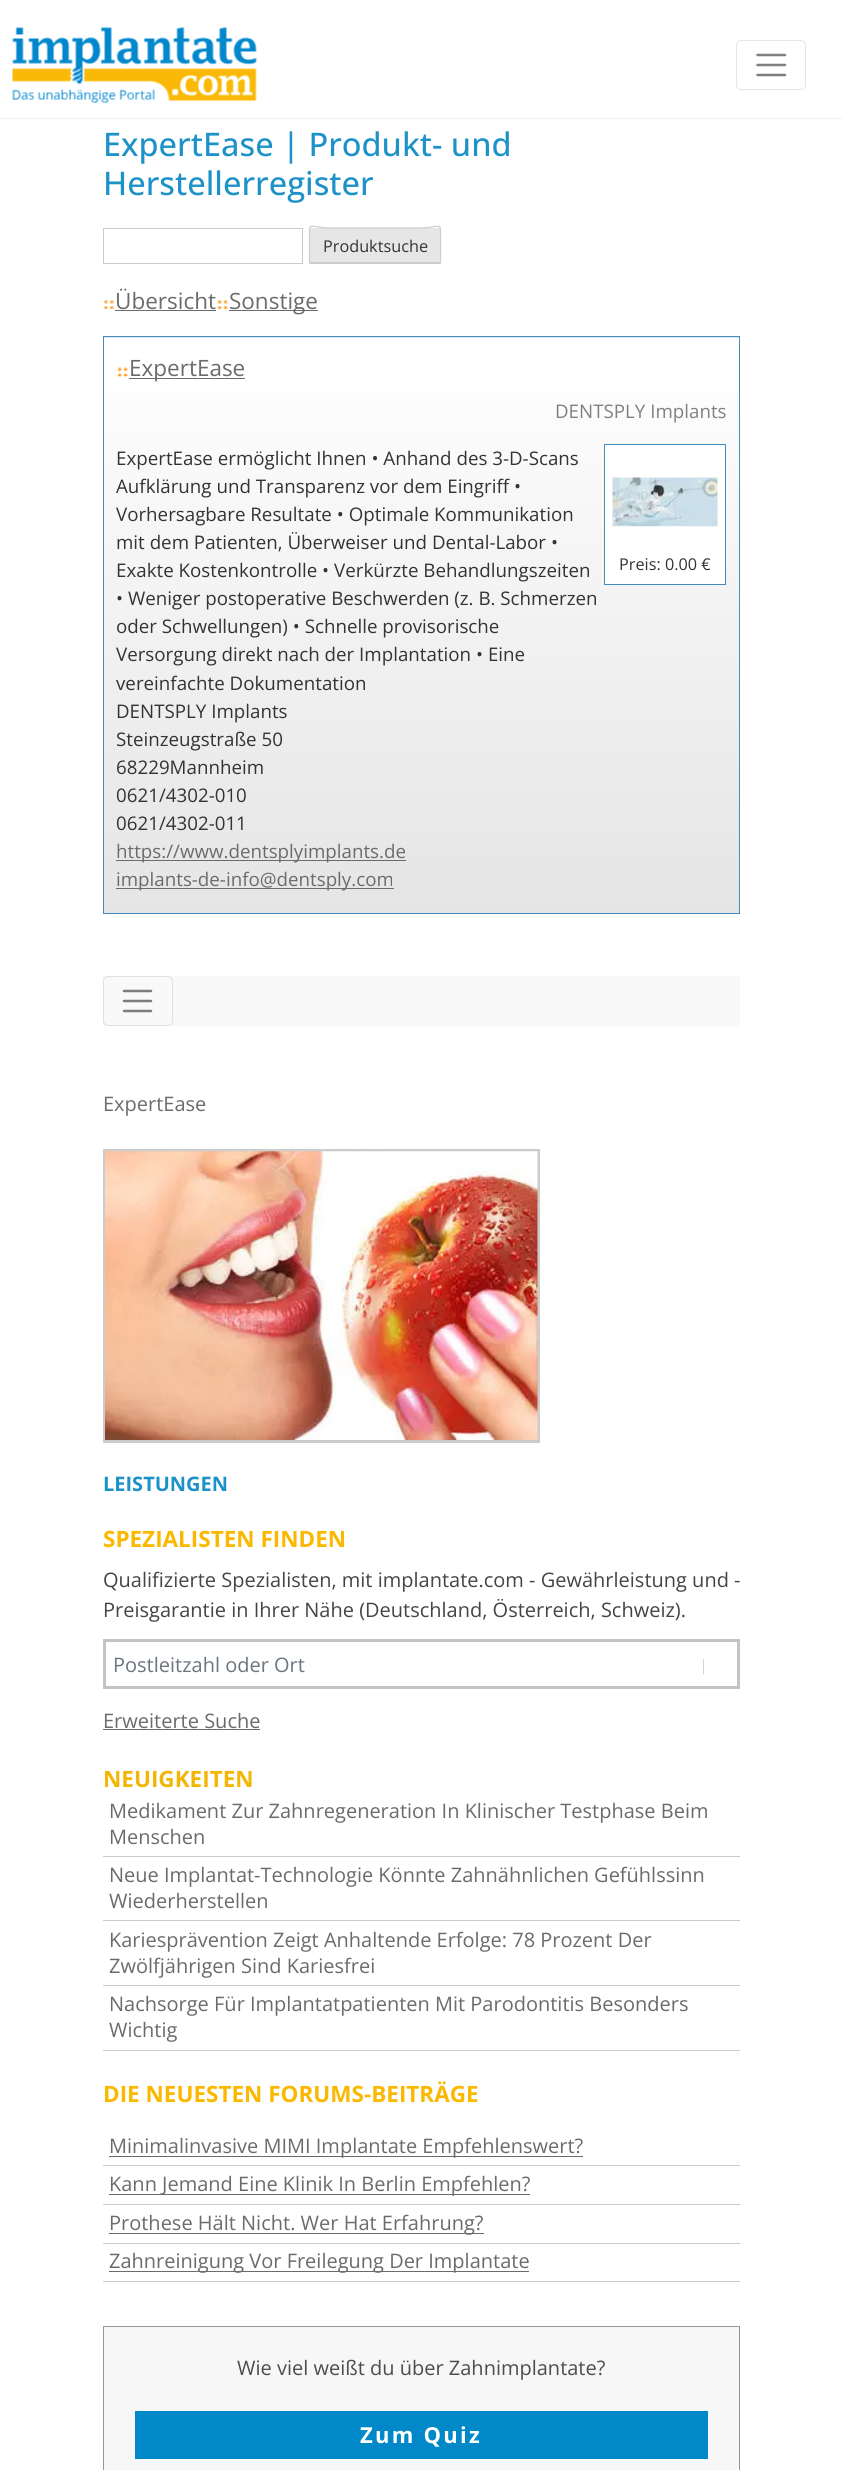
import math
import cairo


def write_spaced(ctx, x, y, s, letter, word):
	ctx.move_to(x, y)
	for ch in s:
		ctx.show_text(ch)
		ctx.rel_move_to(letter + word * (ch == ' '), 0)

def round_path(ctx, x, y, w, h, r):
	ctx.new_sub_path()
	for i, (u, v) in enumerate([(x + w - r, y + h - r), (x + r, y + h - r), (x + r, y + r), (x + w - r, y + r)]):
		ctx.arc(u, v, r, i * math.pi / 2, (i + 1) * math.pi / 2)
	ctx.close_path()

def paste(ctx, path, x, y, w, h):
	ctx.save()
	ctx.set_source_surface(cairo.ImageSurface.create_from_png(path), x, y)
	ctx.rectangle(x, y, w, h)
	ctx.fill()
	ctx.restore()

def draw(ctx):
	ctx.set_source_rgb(1, 1, 1)
	ctx.paint()
	ctx.set_source_rgb(0.941, 0.941, 0.941)
	ctx.rectangle(0, 118, 842, 1)
	ctx.fill()
	paste(ctx, 'media/1.png', 12, 27, 245, 76)
	round_path(ctx, 736.5, 40.5, 69, 49, 4.5)
	ctx.set_source_rgb(0.902, 0.902, 0.902)
	ctx.set_line_width(1)
	ctx.stroke()
	ctx.new_path()
	ctx.move_to(757.5, 55)
	ctx.line_to(785, 55)
	ctx.move_to(757.5, 65)
	ctx.line_to(785, 65)
	ctx.move_to(757.5, 75)
	ctx.line_to(785, 75)
	ctx.set_source_rgb(0.502, 0.502, 0.502)
	ctx.set_line_width(2.5)
	ctx.set_line_cap(cairo.LINE_CAP_ROUND)
	ctx.stroke()
	ctx.select_font_face('Open Sans Medium')
	ctx.set_font_size(32.5)
	ctx.set_source_rgb(0.11, 0.573, 0.784)
	ctx.move_to(103, 156)
	ctx.show_text('ExpertEase | Produkt- und')
	ctx.move_to(103, 195)
	ctx.show_text('Herstellerregister')
	ctx.rectangle(103.5, 228.5, 199, 35)
	ctx.set_source_rgb(0.8, 0.8, 0.8)
	ctx.set_line_width(1)
	ctx.set_line_cap(cairo.LINE_CAP_BUTT)
	ctx.stroke()
	ctx.set_source_rgb(0.902, 0.902, 0.902)
	round_path(ctx, 309, 228, 132, 36, 1)
	ctx.fill()
	ctx.new_path()
	ctx.move_to(440.5, 263)
	ctx.line_to(309.5, 263)
	ctx.set_source_rgb(0.733, 0.733, 0.733)
	ctx.set_line_width(1.2)
	ctx.stroke()
	ctx.new_path()
	ctx.move_to(309.5, 263)
	ctx.line_to(309.5, 234.5)
	ctx.curve_to(309.5, 221, 309.5, 228, 331.5, 228)
	ctx.line_to(418.5, 228)
	ctx.curve_to(440.5, 228, 440.5, 221, 440.5, 234.5)
	ctx.line_to(440.5, 263)
	ctx.set_source_rgb(0.8, 0.8, 0.8)
	ctx.stroke()
	ctx.select_font_face('Open Sans')
	ctx.set_font_size(16.25)
	ctx.set_source_rgb(0.2, 0.2, 0.2)
	ctx.move_to(323, 252)
	ctx.show_text('Produktsuche')
	paste(ctx, 'media/2.png', 103, 299, 11, 10)
	ctx.set_font_size(22.5)
	ctx.set_source_rgb(0.42, 0.42, 0.42)
	ctx.move_to(115, 309)
	ctx.show_text('Übersicht')
	ctx.rectangle(115, 310, 101, 1)
	ctx.fill()
	paste(ctx, 'media/3.png', 217, 299, 11, 10)
	ctx.rectangle(229, 310, 89, 1)
	ctx.fill()
	ctx.move_to(229, 309)
	ctx.show_text('Sonstige')
	gradient = cairo.LinearGradient(421, -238, 421, 338)
	gradient.add_color_stop_rgba(0, 1, 1, 1, 1)
	gradient.add_color_stop_rgba(1, 0.898, 0.898, 0.898, 1)
	ctx.set_source(gradient)
	ctx.rectangle(103, 337, 637, 1)
	ctx.fill()
	gradient = cairo.LinearGradient(421, 338, 421, 913)
	gradient.add_color_stop_rgba(0, 1, 1, 1, 1)
	gradient.add_color_stop_rgba(1, 0.898, 0.898, 0.898, 1)
	ctx.set_source(gradient)
	ctx.rectangle(104, 393, 635, 520)
	ctx.fill()
	ctx.rectangle(103.5, 336.5, 636, 577)
	ctx.set_source_rgb(0.267, 0.549, 0.749)
	ctx.set_line_width(1)
	ctx.stroke()
	paste(ctx, 'media/4.png', 117, 367, 11, 10)
	ctx.set_source_rgb(0.42, 0.42, 0.42)
	ctx.rectangle(129, 378, 116, 1)
	ctx.fill()
	ctx.move_to(129, 376)
	ctx.show_text('ExpertEase')
	ctx.set_font_size(18.75)
	ctx.set_source_rgb(0.502, 0.502, 0.502)
	ctx.move_to(555, 418)
	ctx.show_text('DENTSPLY Implants')
	ctx.set_source_rgb(0.2, 0.2, 0.2)
	for x, y, s in [
		(116, 465, 'ExpertEase ermöglicht Ihnen • Anhand des 3-D-Scans'),
		(116, 493, 'Aufklärung und Transparenz vor dem Eingriff •'),
		(116, 521, 'Vorhersagbare Resultate • Optimale Kommunikation'),
		(116, 549, 'mit dem Patienten, Überweiser und Dental-Labor •'),
		(116, 577, 'Exakte Kostenkontrolle • Verkürzte Behandlungszeiten'),
		(116, 605, '• Weniger postoperative Beschwerden (z. B. Schmerzen'),
		(116, 633, 'oder Schwellungen) • Schnelle provisorische'),
		(116, 661, 'Versorgung direkt nach der Implantation • Eine'),
		(116, 690, 'vereinfachte Dokumentation'),
		(116, 718, 'DENTSPLY Implants'),
		(116, 746, 'Steinzeugstraße 50'),
		(116, 774, '68229Mannheim'),
		(116, 802, '0621/4302-010'),
		(116, 830, '0621/4302-011'),
	]:
		ctx.move_to(x, y)
		ctx.show_text(s)
	ctx.set_source_rgb(0.42, 0.42, 0.42)
	ctx.rectangle(116, 860, 290, 1)
	ctx.fill()
	ctx.move_to(116, 858)
	ctx.show_text('https://www.dentsplyimplants.de')
	ctx.rectangle(116, 888, 278, 1)
	ctx.fill()
	ctx.move_to(116, 886)
	ctx.show_text('implants-de-info@dentsply.com')
	ctx.set_source_rgb(1, 1, 1)
	ctx.rectangle(604.5, 444.5, 121, 140)
	ctx.fill_preserve()
	ctx.set_source_rgb(0.267, 0.549, 0.749)
	ctx.stroke()
	paste(ctx, 'media/5.png', 612, 477, 106, 50)
	ctx.set_font_size(16.25)
	ctx.set_source_rgb(0.2, 0.2, 0.2)
	ctx.move_to(619, 570)
	ctx.show_text('Preis: 0.00 €')
	ctx.set_source_rgb(0.973, 0.976, 0.98)
	ctx.rectangle(103, 976, 637, 50)
	ctx.fill()
	round_path(ctx, 103.5, 976.5, 69, 49, 4.5)
	ctx.set_source_rgb(0.875, 0.878, 0.882)
	ctx.stroke()
	ctx.new_path()
	ctx.move_to(124, 991)
	ctx.line_to(151, 991)
	ctx.move_to(124, 1001)
	ctx.line_to(151, 1001)
	ctx.move_to(124, 1011)
	ctx.line_to(151, 1011)
	ctx.set_source_rgb(0.486, 0.49, 0.49)
	ctx.set_line_width(2.5)
	ctx.set_line_cap(cairo.LINE_CAP_ROUND)
	ctx.stroke()
	ctx.set_font_size(20)
	ctx.set_source_rgb(0.42, 0.42, 0.42)
	ctx.move_to(103, 1111)
	ctx.show_text('ExpertEase')
	ctx.rectangle(104.5, 1150.5, 434, 291)
	ctx.set_source_rgb(0.8, 0.8, 0.8)
	ctx.set_line_width(3)
	ctx.set_line_cap(cairo.LINE_CAP_BUTT)
	ctx.stroke()
	paste(ctx, 'media/6.png', 105, 1151, 433, 289)
	ctx.select_font_face('Open Sans', cairo.FONT_SLANT_NORMAL, cairo.FONT_WEIGHT_BOLD)
	ctx.set_source_rgb(0.11, 0.573, 0.784)
	ctx.move_to(103, 1491)
	ctx.show_text('LEISTUNGEN')
	ctx.set_font_size(22.5)
	ctx.set_source_rgb(0.98, 0.725, 0)
	ctx.move_to(103, 1547)
	ctx.show_text('SPEZIALISTEN FINDEN')
	ctx.select_font_face('Open Sans')
	ctx.set_font_size(20)
	ctx.set_source_rgb(0.271, 0.271, 0.271)
	ctx.move_to(103, 1587)
	ctx.show_text('Qualifizierte Spezialisten, mit implantate.com - Gewährleistung und -')
	ctx.move_to(103, 1617)
	ctx.show_text('Preisgarantie in Ihrer Nähe (Deutschland, Österreich, Schweiz).')
	ctx.rectangle(104.5, 1640.5, 634, 47)
	ctx.set_source_rgb(0.765, 0.765, 0.765)
	ctx.stroke()
	ctx.set_source_rgb(0.424, 0.459, 0.49)
	ctx.move_to(113, 1672)
	ctx.show_text('Postleitzahl oder Ort')
	ctx.set_source_rgb(0.808, 0.831, 0.855)
	ctx.rectangle(703, 1659, 1, 15)
	ctx.fill()
	ctx.set_source_rgb(0.42, 0.42, 0.42)
	ctx.move_to(103, 1728)
	ctx.show_text('Erweiterte Suche')
	ctx.rectangle(103, 1729, 157, 1)
	ctx.fill()
	ctx.select_font_face('Open Sans', cairo.FONT_SLANT_NORMAL, cairo.FONT_WEIGHT_BOLD)
	ctx.set_font_size(22.5)
	ctx.set_source_rgb(0.957, 0.714, 0.02)
	ctx.move_to(103, 1787)
	ctx.show_text('NEUIGKEITEN')
	ctx.set_source_rgb(0.8, 0.8, 0.8)
	ctx.rectangle(103, 1856, 637, 1)
	ctx.fill()
	ctx.select_font_face('Open Sans')
	ctx.set_font_size(20)
	ctx.set_source_rgb(0.42, 0.42, 0.42)
	ctx.move_to(109, 1818)
	ctx.show_text('Medikament Zur Zahnregeneration In Klinischer Testphase Beim')
	ctx.move_to(109, 1844)
	ctx.show_text('Menschen')
	ctx.set_source_rgb(0.8, 0.8, 0.8)
	ctx.rectangle(103, 1920, 637, 1)
	ctx.fill()
	ctx.set_source_rgb(0.42, 0.42, 0.42)
	ctx.move_to(109, 1882)
	ctx.show_text('Neue Implantat-Technologie Könnte Zahnähnlichen Gefühlssinn')
	ctx.move_to(109, 1908)
	ctx.show_text('Wiederherstellen')
	ctx.set_source_rgb(0.8, 0.8, 0.8)
	ctx.rectangle(103, 1985, 637, 1)
	ctx.fill()
	ctx.set_source_rgb(0.42, 0.42, 0.42)
	ctx.move_to(109, 1947)
	ctx.show_text('Kariesprävention Zeigt Anhaltende Erfolge: 78 Prozent Der')
	ctx.move_to(109, 1973)
	ctx.show_text('Zwölfjährigen Sind Kariesfrei')
	ctx.set_source_rgb(0.8, 0.8, 0.8)
	ctx.rectangle(103, 2050, 637, 1)
	ctx.fill()
	ctx.set_source_rgb(0.42, 0.42, 0.42)
	ctx.move_to(109, 2011)
	ctx.show_text('Nachsorge Für Implantatpatienten Mit Parodontitis Besonders')
	ctx.move_to(109, 2037)
	ctx.show_text('Wichtig')
	ctx.select_font_face('Open Sans', cairo.FONT_SLANT_NORMAL, cairo.FONT_WEIGHT_BOLD)
	ctx.set_font_size(22.5)
	ctx.set_source_rgb(0.98, 0.725, 0)
	ctx.move_to(103, 2102)
	ctx.show_text('DIE NEUESTEN FORUMS-BEITRÄGE')
	ctx.set_source_rgb(0.8, 0.8, 0.8)
	ctx.rectangle(103, 2165, 637, 1)
	ctx.fill()
	ctx.set_source_rgb(0.42, 0.42, 0.42)
	ctx.rectangle(109, 2156, 474, 1)
	ctx.fill()
	ctx.select_font_face('Open Sans')
	ctx.set_font_size(20)
	ctx.move_to(109, 2153)
	ctx.show_text('Minimalinvasive MIMI Implantate Empfehlenswert?')
	ctx.set_source_rgb(0.8, 0.8, 0.8)
	ctx.rectangle(103, 2204, 637, 1)
	ctx.fill()
	ctx.set_source_rgb(0.42, 0.42, 0.42)
	ctx.rectangle(109, 2194, 421, 1)
	ctx.fill()
	ctx.move_to(109, 2191)
	ctx.show_text('Kann Jemand Eine Klinik In Berlin Empfehlen?')
	ctx.set_source_rgb(0.8, 0.8, 0.8)
	ctx.rectangle(103, 2243, 637, 1)
	ctx.fill()
	ctx.set_source_rgb(0.42, 0.42, 0.42)
	ctx.rectangle(109, 2233, 375, 1)
	ctx.fill()
	ctx.move_to(109, 2230)
	ctx.show_text('Prothese Hält Nicht. Wer Hat Erfahrung?')
	ctx.set_source_rgb(0.8, 0.8, 0.8)
	ctx.rectangle(103, 2281, 637, 1)
	ctx.fill()
	ctx.set_source_rgb(0.42, 0.42, 0.42)
	ctx.rectangle(109, 2271, 420, 1)
	ctx.fill()
	ctx.move_to(109, 2268)
	ctx.show_text('Zahnreinigung Vor Freilegung Der Implantate')
	ctx.set_source_rgb(0.965, 0.965, 0.965)
	ctx.rectangle(103.5, 2326.5, 636, 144)
	ctx.fill_preserve()
	ctx.set_source_rgb(0.588, 0.588, 0.588)
	ctx.set_line_width(1)
	ctx.stroke()
	ctx.set_source_rgb(0.302, 0.302, 0.302)
	ctx.move_to(237, 2375)
	ctx.show_text('Wie viel weißt du über Zahnimplantate?')
	ctx.set_source_rgb(0, 0.533, 0.784)
	ctx.rectangle(135, 2411, 573, 48)
	ctx.fill()
	ctx.select_font_face('Open Sans', cairo.FONT_SLANT_NORMAL, cairo.FONT_WEIGHT_BOLD)
	ctx.set_font_size(22)
	ctx.set_source_rgb(1, 1, 1)
	write_spaced(ctx, 360, 2443, 'Zum Quiz', 2.25, 0)


surface = cairo.ImageSurface(cairo.FORMAT_RGB24, 842, 2470)
ctx = cairo.Context(surface)
options = cairo.FontOptions()
options.set_hint_metrics(cairo.HINT_METRICS_OFF)
options.set_hint_style(cairo.HINT_STYLE_NONE)
ctx.set_font_options(options)
ctx.set_miter_limit(4)
draw(ctx)
surface.write_to_png('image.png')
